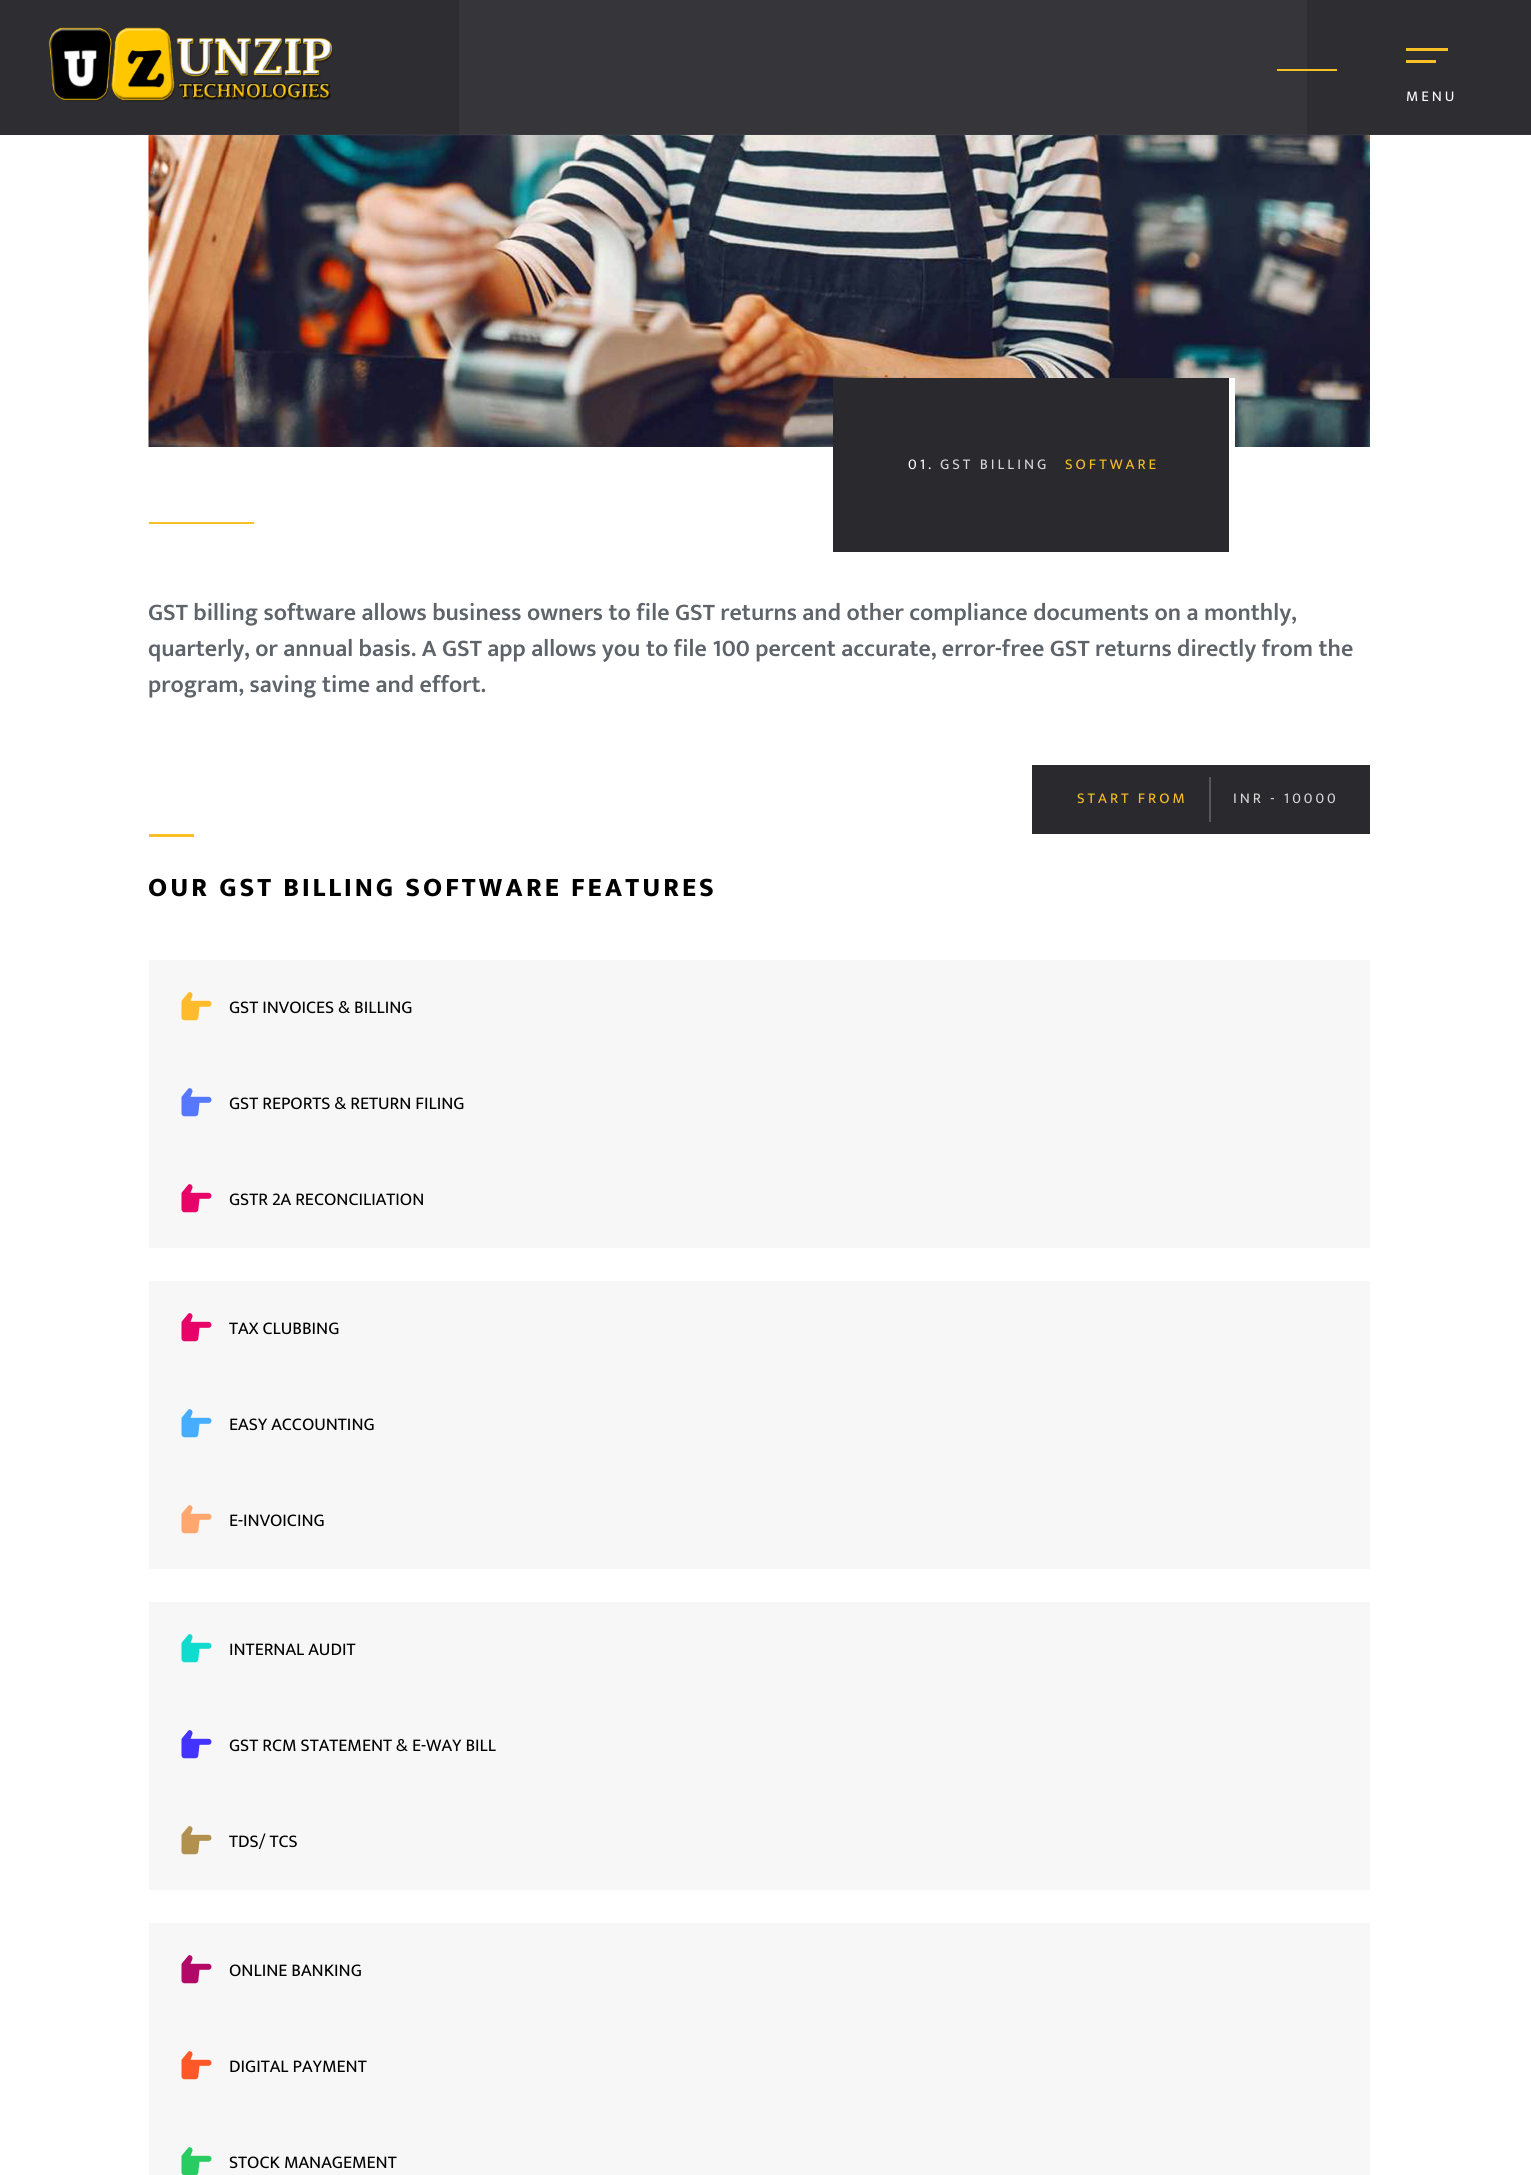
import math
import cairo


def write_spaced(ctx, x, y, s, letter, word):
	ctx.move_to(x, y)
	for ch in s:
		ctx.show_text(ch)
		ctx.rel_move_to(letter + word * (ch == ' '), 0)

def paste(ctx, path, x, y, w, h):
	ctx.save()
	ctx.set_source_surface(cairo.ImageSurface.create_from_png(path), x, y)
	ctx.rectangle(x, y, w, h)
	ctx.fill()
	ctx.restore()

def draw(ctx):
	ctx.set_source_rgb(1, 1, 1)
	ctx.paint()
	ctx.set_source_rgb(0.176, 0.176, 0.196)
	ctx.rectangle(0, 0, 1531, 135)
	ctx.fill()
	paste(ctx, 'media/1.png', 48, 27, 285, 75)
	ctx.set_source_rgb(0.208, 0.208, 0.227)
	ctx.rectangle(459, 0, 848, 135)
	ctx.fill()
	ctx.set_source_rgb(0.976, 0.749, 0.149)
	ctx.rectangle(1277, 69, 60, 2)
	ctx.rectangle(1406, 48, 42, 3)
	ctx.rectangle(1406, 60, 30, 3)
	ctx.fill()
	ctx.select_font_face('Mukta')
	ctx.set_font_size(15)
	ctx.set_source_rgb(1, 1, 1)
	write_spaced(ctx, 1406, 101, 'MENU', 3, 0)
	paste(ctx, 'media/2.png', 148, 135, 1222, 312)
	ctx.set_source_rgba(1, 1, 1, 0.03)
	ctx.rectangle(135, 134, 1396, 2)
	ctx.fill()
	ctx.set_source_rgb(0.165, 0.165, 0.18)
	ctx.rectangle(833, 378, 396, 174)
	ctx.fill()
	ctx.set_source_rgb(1, 1, 1)
	ctx.rectangle(1229, 378, 6, 69)
	ctx.fill()
	write_spaced(ctx, 908, 469, '01.', 3, 0)
	ctx.set_source_rgb(0.843, 0.843, 0.843)
	write_spaced(ctx, 940, 469, 'GST BILLING', 3, 0)
	ctx.set_source_rgb(0.976, 0.749, 0.149)
	write_spaced(ctx, 1065, 469, 'SOFTWARE', 3, 0)
	ctx.rectangle(149, 522, 105, 2)
	ctx.fill()
	ctx.select_font_face('Mukta SemiBold')
	ctx.set_font_size(24)
	ctx.set_source_rgb(0.369, 0.392, 0.416)
	for x, y, s in [
		(148, 620, 'GST billing software allows business owners to file GST returns and other compliance documents on a monthly,'),
		(148, 656, 'quarterly, or annual basis. A GST app allows you to file 100 percent accurate, error-free GST returns directly from the'),
		(148, 692, 'program, saving time and effort.'),
	]:
		ctx.move_to(x, y)
		ctx.show_text(s)
	ctx.set_source_rgb(0.165, 0.165, 0.18)
	ctx.rectangle(1032, 765, 338, 69)
	ctx.fill()
	ctx.select_font_face('Mukta')
	ctx.set_font_size(15)
	ctx.set_source_rgb(0.976, 0.749, 0.149)
	write_spaced(ctx, 1077, 803, 'START FROM', 3, 0)
	ctx.set_source_rgb(0.341, 0.341, 0.353)
	ctx.rectangle(1209, 777, 2, 45)
	ctx.fill()
	ctx.set_source_rgb(0.843, 0.843, 0.843)
	write_spaced(ctx, 1233, 803, 'INR - 10000', 3, 0)
	ctx.set_source_rgb(0.976, 0.749, 0.149)
	ctx.rectangle(149, 834, 45, 3)
	ctx.fill()
	ctx.select_font_face('Mukta ExtraBold')
	ctx.set_font_size(27)
	ctx.set_source_rgb(0, 0, 0)
	write_spaced(ctx, 148, 896, 'OUR GST BILLING SOFTWARE FEATURES', 3, 0)
	ctx.set_source_rgb(0.965, 0.965, 0.965)
	ctx.rectangle(149, 960, 1221, 288)
	ctx.fill()
	paste(ctx, 'media/3.png', 181, 992, 31, 29)
	ctx.select_font_face('Mukta')
	ctx.set_font_size(18)
	ctx.set_source_rgb(0, 0, 0)
	ctx.move_to(229, 1013)
	ctx.show_text('GST INVOICES & BILLING')
	paste(ctx, 'media/4.png', 181, 1088, 31, 29)
	ctx.move_to(229, 1109)
	ctx.show_text('GST REPORTS & RETURN FILING')
	paste(ctx, 'media/5.png', 181, 1184, 31, 29)
	ctx.move_to(229, 1205)
	ctx.show_text('GSTR 2A RECONCILIATION')
	ctx.set_source_rgb(0.965, 0.965, 0.965)
	ctx.rectangle(149, 1281, 1221, 288)
	ctx.fill()
	paste(ctx, 'media/5.png', 181, 1313, 31, 29)
	ctx.set_source_rgb(0, 0, 0)
	ctx.move_to(229, 1334)
	ctx.show_text('TAX CLUBBING')
	paste(ctx, 'media/6.png', 181, 1409, 31, 29)
	ctx.move_to(229, 1430)
	ctx.show_text('EASY ACCOUNTING')
	paste(ctx, 'media/7.png', 181, 1505, 31, 29)
	ctx.move_to(229, 1526)
	ctx.show_text('E-INVOICING')
	ctx.set_source_rgb(0.965, 0.965, 0.965)
	ctx.rectangle(149, 1602, 1221, 288)
	ctx.fill()
	paste(ctx, 'media/8.png', 181, 1634, 31, 29)
	ctx.set_source_rgb(0, 0, 0)
	ctx.move_to(229, 1655)
	ctx.show_text('INTERNAL AUDIT')
	paste(ctx, 'media/9.png', 181, 1730, 31, 29)
	ctx.move_to(229, 1751)
	ctx.show_text('GST RCM STATEMENT & E-WAY BILL')
	paste(ctx, 'media/10.png', 181, 1826, 31, 29)
	ctx.move_to(229, 1847)
	ctx.show_text('TDS/ TCS')
	ctx.set_source_rgb(0.965, 0.965, 0.965)
	ctx.rectangle(149, 1923, 1221, 252)
	ctx.fill()
	paste(ctx, 'media/11.png', 181, 1955, 31, 29)
	ctx.set_source_rgb(0, 0, 0)
	ctx.move_to(229, 1976)
	ctx.show_text('ONLINE BANKING')
	paste(ctx, 'media/12.png', 181, 2051, 31, 29)
	ctx.move_to(229, 2072)
	ctx.show_text('DIGITAL PAYMENT')
	paste(ctx, 'media/13.png', 181, 2147, 31, 28)
	ctx.move_to(229, 2168)
	ctx.show_text('STOCK MANAGEMENT')


surface = cairo.ImageSurface(cairo.FORMAT_RGB24, 1531, 2175)
ctx = cairo.Context(surface)
options = cairo.FontOptions()
options.set_hint_metrics(cairo.HINT_METRICS_OFF)
options.set_hint_style(cairo.HINT_STYLE_NONE)
ctx.set_font_options(options)
ctx.set_miter_limit(4)
draw(ctx)
surface.write_to_png('image.png')
